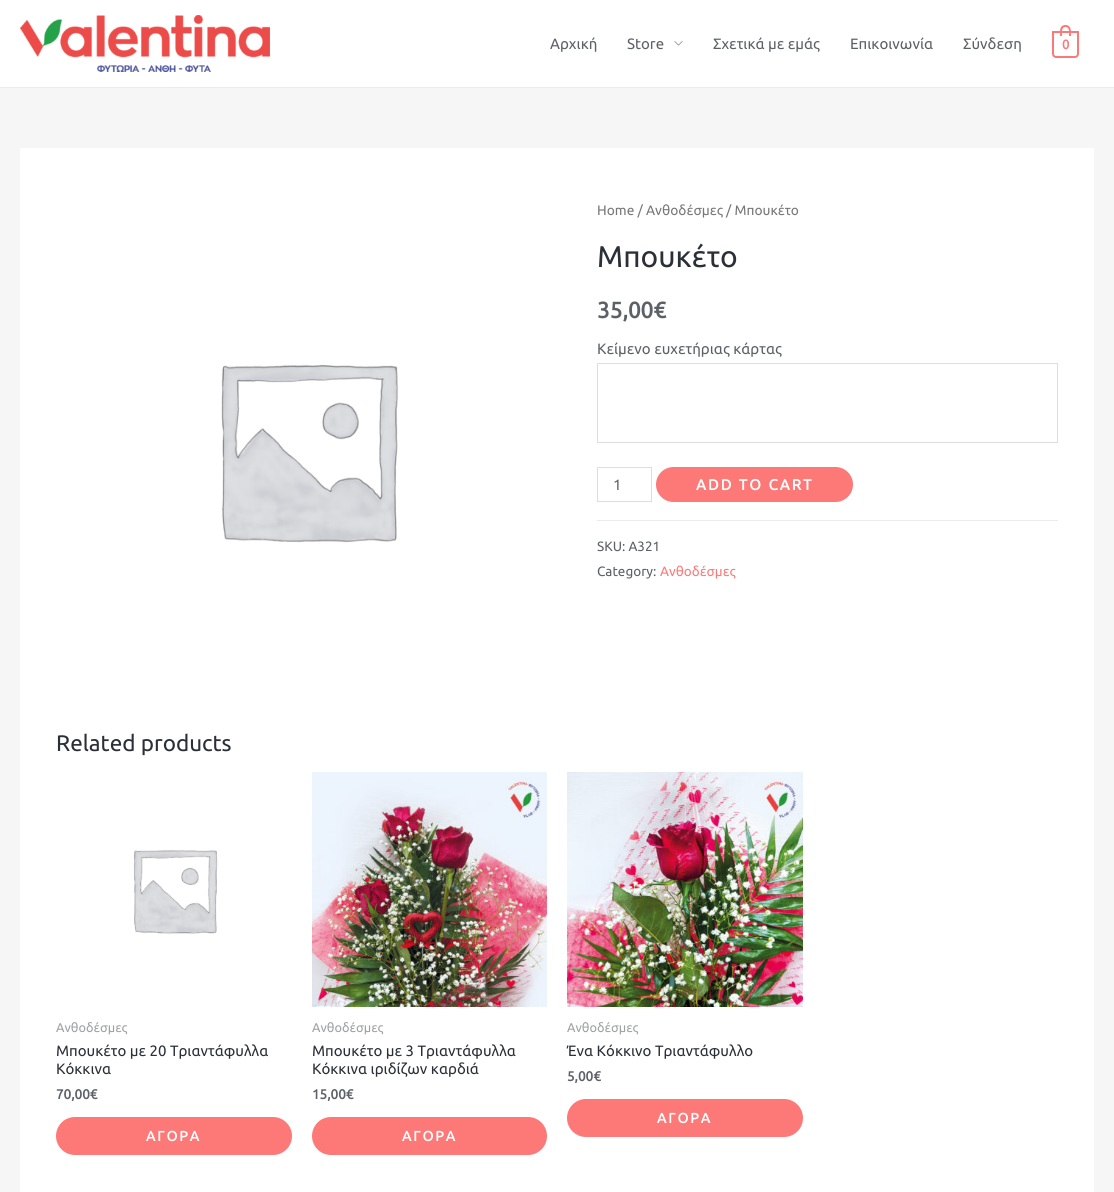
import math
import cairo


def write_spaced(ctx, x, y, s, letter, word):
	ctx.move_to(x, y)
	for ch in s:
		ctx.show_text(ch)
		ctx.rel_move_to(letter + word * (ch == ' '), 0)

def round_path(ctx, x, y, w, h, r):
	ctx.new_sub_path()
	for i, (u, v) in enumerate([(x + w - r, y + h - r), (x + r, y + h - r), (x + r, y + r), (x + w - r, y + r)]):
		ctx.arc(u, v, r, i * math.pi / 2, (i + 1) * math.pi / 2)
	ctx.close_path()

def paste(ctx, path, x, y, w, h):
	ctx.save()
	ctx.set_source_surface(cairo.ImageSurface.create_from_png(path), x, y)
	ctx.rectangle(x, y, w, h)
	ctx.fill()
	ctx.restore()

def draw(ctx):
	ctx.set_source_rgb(0.961, 0.961, 0.961)
	ctx.paint()
	ctx.set_source_rgb(1, 1, 1)
	ctx.rectangle(0, 0, 1114, 87)
	ctx.fill()
	ctx.set_source_rgb(0.918, 0.918, 0.918)
	ctx.rectangle(0, 87, 1114, 1)
	ctx.fill()
	paste(ctx, 'media/1.png', 20, 15, 250, 57)
	ctx.select_font_face('Ubuntu')
	ctx.set_font_size(15)
	ctx.set_source_rgb(0.365, 0.38, 0.404)
	ctx.move_to(550, 49)
	ctx.show_text('Αρχική')
	ctx.move_to(627, 49)
	ctx.show_text('Store')
	paste(ctx, 'media/2.png', 674, 41, 9, 5)
	for x, y, s in [
		(713, 49, 'Σχετικά με εμάς'),
		(850, 49, 'Επικοινωνία'),
		(963, 49, 'Σύνδεση'),
	]:
		ctx.move_to(x, y)
		ctx.show_text(s)
	ctx.new_path()
	ctx.move_to(1053, 32)
	ctx.line_to(1078, 32)
	ctx.line_to(1078, 54)
	ctx.curve_to(1078, 55.5, 1076.5, 57, 1075, 57)
	ctx.line_to(1056, 57)
	ctx.curve_to(1054.5, 57, 1053, 55.5, 1053, 54)
	ctx.close_path()
	ctx.set_source_rgb(0.988, 0.475, 0.471)
	ctx.stroke()
	ctx.set_fill_rule(cairo.FILL_RULE_EVEN_ODD)
	ctx.new_path()
	ctx.move_to(1065.5, 25)
	ctx.curve_to(1071.5, 25, 1071, 31.5, 1071, 36)
	ctx.line_to(1060, 36)
	ctx.curve_to(1060, 31.5, 1059, 25, 1065.5, 25)
	ctx.close_path()
	ctx.move_to(1065.5, 27)
	ctx.curve_to(1070, 27, 1069, 33, 1069, 36)
	ctx.line_to(1062, 36)
	ctx.curve_to(1062, 33, 1061, 27, 1065.5, 27)
	ctx.close_path()
	ctx.fill()
	ctx.select_font_face('Ubuntu', cairo.FONT_SLANT_NORMAL, cairo.FONT_WEIGHT_BOLD)
	ctx.set_font_size(13)
	ctx.move_to(1062, 49)
	ctx.show_text('0')
	ctx.set_source_rgb(1, 1, 1)
	ctx.rectangle(20, 148, 1074, 1044)
	ctx.fill()
	paste(ctx, 'media/3.png', 221, 364, 178, 179)
	ctx.select_font_face('Ubuntu')
	ctx.set_font_size(13.75)
	ctx.set_source_rgb(0.467, 0.467, 0.467)
	ctx.move_to(597, 215)
	ctx.show_text('Home / Ανθοδέσμες / Μπουκέτο')
	ctx.set_font_size(30)
	ctx.set_source_rgb(0.169, 0.184, 0.22)
	ctx.move_to(597, 267)
	ctx.show_text('Μπουκέτο')
	ctx.select_font_face('Ubuntu', cairo.FONT_SLANT_NORMAL, cairo.FONT_WEIGHT_BOLD)
	ctx.set_font_size(22.5)
	ctx.set_source_rgb(0.365, 0.38, 0.404)
	ctx.move_to(597, 318)
	ctx.show_text('35,00€')
	ctx.select_font_face('Ubuntu')
	ctx.set_font_size(15)
	ctx.move_to(597, 354)
	ctx.show_text('Κείμενο ευχετήριας κάρτας')
	ctx.rectangle(597.5, 363.5, 460, 79)
	ctx.set_source_rgb(0.867, 0.867, 0.867)
	ctx.set_line_width(1)
	ctx.stroke()
	ctx.rectangle(597.5, 467.5, 54, 34)
	ctx.stroke()
	ctx.set_source_rgb(0.4, 0.4, 0.4)
	ctx.move_to(613, 490)
	ctx.show_text('1')
	ctx.set_source_rgb(0.988, 0.475, 0.471)
	round_path(ctx, 656, 467, 197, 35, 17.5)
	ctx.fill()
	ctx.select_font_face('Ubuntu', cairo.FONT_SLANT_NORMAL, cairo.FONT_WEIGHT_BOLD)
	ctx.set_source_rgb(1, 1, 1)
	write_spaced(ctx, 696, 490, 'ADD TO CART', 2, 0)
	ctx.set_source_rgb(0.922, 0.922, 0.922)
	ctx.rectangle(597, 520, 461, 1)
	ctx.fill()
	ctx.select_font_face('Ubuntu')
	ctx.set_font_size(13.5)
	ctx.set_source_rgb(0.365, 0.38, 0.404)
	ctx.move_to(597, 551)
	ctx.show_text('SKU: A321')
	ctx.move_to(597, 576)
	ctx.show_text('Category:')
	ctx.set_source_rgb(0.988, 0.475, 0.471)
	ctx.move_to(660, 576)
	ctx.show_text('Ανθοδέσμες')
	ctx.set_font_size(22.5)
	ctx.set_source_rgb(0.169, 0.184, 0.22)
	ctx.move_to(56, 751)
	ctx.show_text('Related products')
	paste(ctx, 'media/4.png', 133, 850, 85, 84)
	ctx.set_font_size(12.75)
	ctx.set_source_rgb(0.62, 0.627, 0.643)
	ctx.move_to(56, 1032)
	ctx.show_text('Ανθοδέσμες')
	ctx.set_font_size(15)
	ctx.set_source_rgb(0.169, 0.184, 0.22)
	ctx.move_to(56, 1056)
	ctx.show_text('Μπουκέτο με 20 Τριαντάφυλλα')
	ctx.move_to(56, 1074)
	ctx.show_text('Κόκκινα')
	ctx.select_font_face('Ubuntu', cairo.FONT_SLANT_NORMAL, cairo.FONT_WEIGHT_BOLD)
	ctx.set_font_size(13.5)
	ctx.set_source_rgb(0.365, 0.38, 0.404)
	ctx.move_to(56, 1099)
	ctx.show_text('70,00€')
	ctx.set_source_rgb(0.988, 0.475, 0.471)
	round_path(ctx, 56, 1117, 236, 38, 19)
	ctx.fill()
	ctx.set_font_size(14)
	ctx.set_source_rgb(1, 1, 1)
	write_spaced(ctx, 146, 1141, 'ΑΓΟΡΑ', 2, 0)
	paste(ctx, 'media/5.png', 312, 772, 235, 235)
	ctx.select_font_face('Ubuntu')
	ctx.set_font_size(12.75)
	ctx.set_source_rgb(0.62, 0.627, 0.643)
	ctx.move_to(312, 1032)
	ctx.show_text('Ανθοδέσμες')
	ctx.set_font_size(15)
	ctx.set_source_rgb(0.169, 0.184, 0.22)
	ctx.move_to(312, 1056)
	ctx.show_text('Μπουκέτο με 3 Τριαντάφυλλα')
	ctx.move_to(312, 1074)
	ctx.show_text('Κόκκινα ιριδίζων καρδιά')
	ctx.select_font_face('Ubuntu', cairo.FONT_SLANT_NORMAL, cairo.FONT_WEIGHT_BOLD)
	ctx.set_font_size(13.5)
	ctx.set_source_rgb(0.365, 0.38, 0.404)
	ctx.move_to(312, 1099)
	ctx.show_text('15,00€')
	ctx.set_source_rgb(0.988, 0.475, 0.471)
	round_path(ctx, 312, 1117, 235, 38, 19)
	ctx.fill()
	ctx.set_font_size(14)
	ctx.set_source_rgb(1, 1, 1)
	write_spaced(ctx, 402, 1141, 'ΑΓΟΡΑ', 2, 0)
	paste(ctx, 'media/6.png', 567, 772, 236, 235)
	ctx.select_font_face('Ubuntu')
	ctx.set_font_size(12.75)
	ctx.set_source_rgb(0.62, 0.627, 0.643)
	ctx.move_to(567, 1032)
	ctx.show_text('Ανθοδέσμες')
	ctx.set_font_size(15)
	ctx.set_source_rgb(0.169, 0.184, 0.22)
	ctx.move_to(567, 1056)
	ctx.show_text('Ένα Κόκκινο Τριαντάφυλλο')
	ctx.select_font_face('Ubuntu', cairo.FONT_SLANT_NORMAL, cairo.FONT_WEIGHT_BOLD)
	ctx.set_font_size(13.5)
	ctx.set_source_rgb(0.365, 0.38, 0.404)
	ctx.move_to(567, 1081)
	ctx.show_text('5,00€')
	ctx.set_source_rgb(0.988, 0.475, 0.471)
	round_path(ctx, 567, 1099, 236, 38, 19)
	ctx.fill()
	ctx.set_font_size(14)
	ctx.set_source_rgb(1, 1, 1)
	write_spaced(ctx, 657, 1123, 'ΑΓΟΡΑ', 2, 0)


surface = cairo.ImageSurface(cairo.FORMAT_RGB24, 1114, 1192)
ctx = cairo.Context(surface)
options = cairo.FontOptions()
options.set_hint_metrics(cairo.HINT_METRICS_OFF)
options.set_hint_style(cairo.HINT_STYLE_NONE)
ctx.set_font_options(options)
ctx.set_miter_limit(4)
draw(ctx)
surface.write_to_png('image.png')
